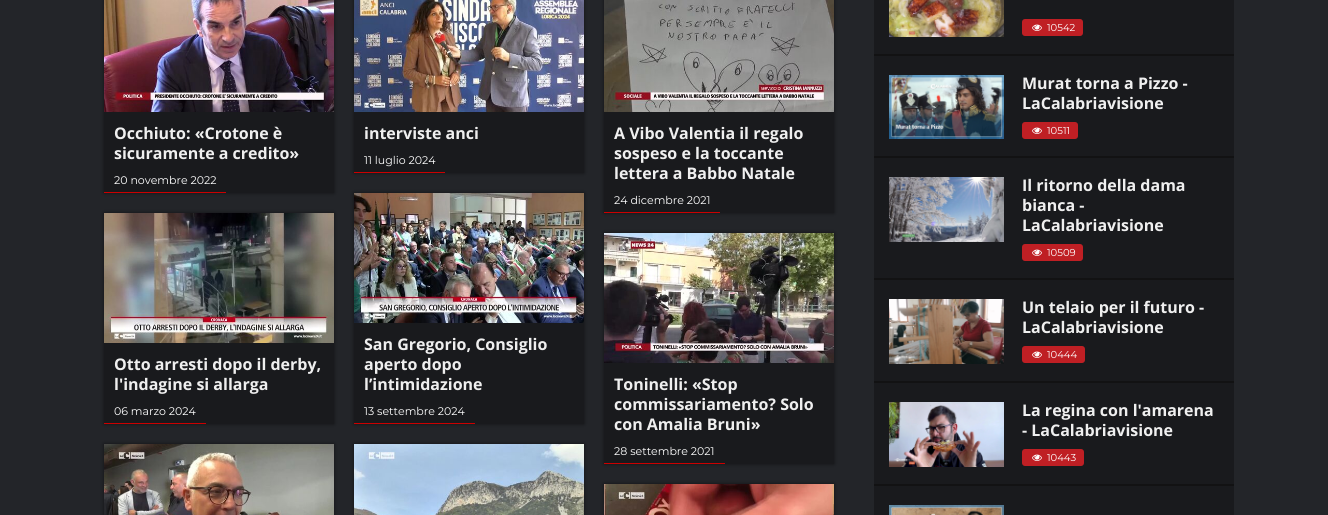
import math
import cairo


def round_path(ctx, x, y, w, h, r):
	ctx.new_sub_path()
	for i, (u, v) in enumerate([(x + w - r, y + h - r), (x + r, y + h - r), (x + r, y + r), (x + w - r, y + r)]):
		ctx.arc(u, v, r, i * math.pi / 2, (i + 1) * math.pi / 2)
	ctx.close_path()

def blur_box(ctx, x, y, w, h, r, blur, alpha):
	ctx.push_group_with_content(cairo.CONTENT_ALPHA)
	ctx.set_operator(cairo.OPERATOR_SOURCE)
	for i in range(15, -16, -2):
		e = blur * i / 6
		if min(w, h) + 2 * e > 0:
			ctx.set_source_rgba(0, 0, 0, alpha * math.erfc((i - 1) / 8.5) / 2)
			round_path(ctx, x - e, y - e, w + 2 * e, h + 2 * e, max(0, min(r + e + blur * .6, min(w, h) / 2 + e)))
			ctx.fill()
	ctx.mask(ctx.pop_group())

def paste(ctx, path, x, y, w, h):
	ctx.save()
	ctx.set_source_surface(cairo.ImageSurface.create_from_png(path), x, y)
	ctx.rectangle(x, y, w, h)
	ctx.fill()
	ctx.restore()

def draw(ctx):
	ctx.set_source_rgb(0.137, 0.145, 0.161)
	ctx.paint()
	ctx.set_source_rgb(0, 0, 0)
	blur_box(ctx, 104, -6, 230, 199, 0, 2, 0.5)
	ctx.set_source_rgb(0.098, 0.102, 0.114)
	ctx.rectangle(104, 112, 230, 81)
	ctx.fill()
	paste(ctx, 'media/1.png', 104, 0, 230, 112)
	ctx.select_font_face('Open Sans', cairo.FONT_SLANT_NORMAL, cairo.FONT_WEIGHT_BOLD)
	ctx.set_font_size(16)
	ctx.set_source_rgb(0.937, 0.937, 0.937)
	ctx.move_to(114, 139)
	ctx.show_text('Occhiuto: «Crotone è')
	ctx.move_to(114, 159)
	ctx.show_text('sicuramente a credito»')
	ctx.select_font_face('Montserrat')
	ctx.set_font_size(11)
	ctx.set_source_rgb(1, 1, 1)
	ctx.move_to(114, 184)
	ctx.show_text('20 novembre 2022')
	ctx.set_source_rgb(0.8, 0, 0)
	ctx.rectangle(104, 192, 122, 1)
	ctx.fill()
	ctx.set_source_rgb(0, 0, 0)
	blur_box(ctx, 354, -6, 230, 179, 0, 2, 0.5)
	ctx.set_source_rgb(0.098, 0.102, 0.114)
	ctx.rectangle(354, 112, 230, 61)
	ctx.fill()
	paste(ctx, 'media/2.png', 354, 0, 230, 112)
	ctx.select_font_face('Open Sans', cairo.FONT_SLANT_NORMAL, cairo.FONT_WEIGHT_BOLD)
	ctx.set_font_size(16)
	ctx.set_source_rgb(0.937, 0.937, 0.937)
	ctx.move_to(364, 139)
	ctx.show_text('interviste anci')
	ctx.select_font_face('Montserrat')
	ctx.set_font_size(11)
	ctx.set_source_rgb(1, 1, 1)
	ctx.move_to(364, 164)
	ctx.show_text('11 luglio 2024')
	ctx.set_source_rgb(0.8, 0, 0)
	ctx.rectangle(354, 172, 91, 1)
	ctx.fill()
	ctx.set_source_rgb(0, 0, 0)
	blur_box(ctx, 604, -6, 230, 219, 0, 2, 0.5)
	ctx.set_source_rgb(0.098, 0.102, 0.114)
	ctx.rectangle(604, 112, 230, 101)
	ctx.fill()
	paste(ctx, 'media/3.png', 604, 0, 230, 112)
	ctx.select_font_face('Open Sans', cairo.FONT_SLANT_NORMAL, cairo.FONT_WEIGHT_BOLD)
	ctx.set_font_size(16)
	ctx.set_source_rgb(0.937, 0.937, 0.937)
	for x, y, s in [
		(614, 139, 'A Vibo Valentia il regalo'),
		(614, 159, 'sospeso e la toccante'),
		(614, 179, 'lettera a Babbo Natale'),
	]:
		ctx.move_to(x, y)
		ctx.show_text(s)
	ctx.select_font_face('Montserrat')
	ctx.set_font_size(11)
	ctx.set_source_rgb(1, 1, 1)
	ctx.move_to(614, 204)
	ctx.show_text('24 dicembre 2021')
	ctx.set_source_rgb(0.8, 0, 0)
	ctx.rectangle(604, 212, 116, 1)
	ctx.fill()
	ctx.set_source_rgb(0, 0, 0)
	blur_box(ctx, 104, 213, 230, 211, 0, 2, 0.5)
	ctx.set_source_rgb(0.098, 0.102, 0.114)
	ctx.rectangle(104, 343, 230, 81)
	ctx.fill()
	paste(ctx, 'media/4.png', 104, 213, 230, 130)
	ctx.select_font_face('Open Sans', cairo.FONT_SLANT_NORMAL, cairo.FONT_WEIGHT_BOLD)
	ctx.set_font_size(16)
	ctx.set_source_rgb(0.937, 0.937, 0.937)
	ctx.move_to(114, 370)
	ctx.show_text('Otto arresti dopo il derby,')
	ctx.move_to(114, 390)
	ctx.show_text('l\'indagine si allarga')
	ctx.select_font_face('Montserrat')
	ctx.set_font_size(11)
	ctx.set_source_rgb(1, 1, 1)
	ctx.move_to(114, 415)
	ctx.show_text('06 marzo 2024')
	ctx.set_source_rgb(0.8, 0, 0)
	ctx.rectangle(104, 423, 102, 1)
	ctx.fill()
	ctx.set_source_rgb(0, 0, 0)
	blur_box(ctx, 354, 193, 230, 231, 0, 2, 0.5)
	ctx.set_source_rgb(0.098, 0.102, 0.114)
	ctx.rectangle(354, 323, 230, 101)
	ctx.fill()
	paste(ctx, 'media/5.png', 354, 193, 230, 130)
	ctx.select_font_face('Open Sans', cairo.FONT_SLANT_NORMAL, cairo.FONT_WEIGHT_BOLD)
	ctx.set_font_size(16)
	ctx.set_source_rgb(0.937, 0.937, 0.937)
	for x, y, s in [
		(364, 350, 'San Gregorio, Consiglio'),
		(364, 370, 'aperto dopo'),
		(364, 390, 'l’intimidazione'),
	]:
		ctx.move_to(x, y)
		ctx.show_text(s)
	ctx.select_font_face('Montserrat')
	ctx.set_font_size(11)
	ctx.set_source_rgb(1, 1, 1)
	ctx.move_to(364, 415)
	ctx.show_text('13 settembre 2024')
	ctx.set_source_rgb(0.8, 0, 0)
	ctx.rectangle(354, 423, 121, 1)
	ctx.fill()
	ctx.set_source_rgb(0, 0, 0)
	blur_box(ctx, 604, 233, 230, 231, 0, 2, 0.5)
	ctx.set_source_rgb(0.098, 0.102, 0.114)
	ctx.rectangle(604, 363, 230, 101)
	ctx.fill()
	paste(ctx, 'media/6.png', 604, 233, 230, 130)
	ctx.select_font_face('Open Sans', cairo.FONT_SLANT_NORMAL, cairo.FONT_WEIGHT_BOLD)
	ctx.set_font_size(16)
	ctx.set_source_rgb(0.937, 0.937, 0.937)
	for x, y, s in [
		(614, 390, 'Toninelli: «Stop'),
		(614, 410, 'commissariamento? Solo'),
		(614, 430, 'con Amalia Bruni»'),
	]:
		ctx.move_to(x, y)
		ctx.show_text(s)
	ctx.select_font_face('Montserrat')
	ctx.set_font_size(11)
	ctx.set_source_rgb(1, 1, 1)
	ctx.move_to(614, 455)
	ctx.show_text('28 settembre 2021')
	ctx.set_source_rgb(0.8, 0, 0)
	ctx.rectangle(604, 463, 121, 1)
	ctx.fill()
	ctx.set_source_rgb(0, 0, 0)
	blur_box(ctx, 104, 444, 230, 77, 0, 2, 0.5)
	paste(ctx, 'media/7.png', 104, 444, 230, 71)
	blur_box(ctx, 354, 444, 230, 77, 0, 2, 0.5)
	paste(ctx, 'media/8.png', 354, 444, 230, 71)
	blur_box(ctx, 604, 484, 230, 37, 0, 2, 0.5)
	paste(ctx, 'media/9.png', 604, 484, 230, 31)
	ctx.set_source_rgb(0.098, 0.102, 0.114)
	ctx.rectangle(874, 0, 360, 515)
	ctx.fill()
	ctx.set_source_rgb(0.071, 0.071, 0.078)
	ctx.rectangle(874, 54, 360, 2)
	ctx.fill()
	paste(ctx, 'media/10.png', 889, 0, 115, 37)
	ctx.set_source_rgb(0.749, 0.122, 0.141)
	round_path(ctx, 1022, 19, 61, 17, 3)
	ctx.fill()
	paste(ctx, 'media/11.png', 1032, 24, 10, 7)
	ctx.set_font_size(10)
	ctx.set_source_rgb(1, 1, 1)
	ctx.move_to(1047, 31)
	ctx.show_text('10542')
	ctx.set_source_rgb(0.071, 0.071, 0.078)
	ctx.rectangle(874, 156, 360, 2)
	ctx.fill()
	paste(ctx, 'media/12.png', 889, 75, 115, 64)
	ctx.select_font_face('Open Sans', cairo.FONT_SLANT_NORMAL, cairo.FONT_WEIGHT_BOLD)
	ctx.set_font_size(16)
	ctx.set_source_rgb(0.937, 0.937, 0.937)
	ctx.move_to(1022, 89)
	ctx.show_text('Murat torna a Pizzo -')
	ctx.move_to(1022, 109)
	ctx.show_text('LaCalabriavisione')
	ctx.set_source_rgb(0.749, 0.122, 0.141)
	round_path(ctx, 1022, 122, 56, 17, 3)
	ctx.fill()
	paste(ctx, 'media/11.png', 1032, 127, 10, 7)
	ctx.select_font_face('Montserrat')
	ctx.set_font_size(10)
	ctx.set_source_rgb(1, 1, 1)
	ctx.move_to(1047, 134)
	ctx.show_text('10511')
	ctx.set_source_rgb(0.071, 0.071, 0.078)
	ctx.rectangle(874, 278, 360, 2)
	ctx.fill()
	paste(ctx, 'media/13.png', 889, 177, 115, 65)
	ctx.select_font_face('Open Sans', cairo.FONT_SLANT_NORMAL, cairo.FONT_WEIGHT_BOLD)
	ctx.set_font_size(16)
	ctx.set_source_rgb(0.937, 0.937, 0.937)
	for x, y, s in [
		(1022, 191, 'Il ritorno della dama'),
		(1022, 211, 'bianca -'),
		(1022, 231, 'LaCalabriavisione'),
	]:
		ctx.move_to(x, y)
		ctx.show_text(s)
	ctx.set_source_rgb(0.749, 0.122, 0.141)
	round_path(ctx, 1022, 244, 61, 17, 3)
	ctx.fill()
	paste(ctx, 'media/11.png', 1032, 249, 10, 7)
	ctx.select_font_face('Montserrat')
	ctx.set_font_size(10)
	ctx.set_source_rgb(1, 1, 1)
	ctx.move_to(1047, 256)
	ctx.show_text('10509')
	ctx.set_source_rgb(0.071, 0.071, 0.078)
	ctx.rectangle(874, 381, 360, 2)
	ctx.fill()
	paste(ctx, 'media/14.png', 889, 299, 115, 65)
	ctx.select_font_face('Open Sans', cairo.FONT_SLANT_NORMAL, cairo.FONT_WEIGHT_BOLD)
	ctx.set_font_size(16)
	ctx.set_source_rgb(0.937, 0.937, 0.937)
	ctx.move_to(1022, 313)
	ctx.show_text('Un telaio per il futuro -')
	ctx.move_to(1022, 333)
	ctx.show_text('LaCalabriavisione')
	ctx.set_source_rgb(0.749, 0.122, 0.141)
	round_path(ctx, 1022, 346, 63, 17, 3)
	ctx.fill()
	paste(ctx, 'media/11.png', 1032, 351, 10, 7)
	ctx.select_font_face('Montserrat')
	ctx.set_font_size(10)
	ctx.set_source_rgb(1, 1, 1)
	ctx.move_to(1047, 358)
	ctx.show_text('10444')
	ctx.set_source_rgb(0.071, 0.071, 0.078)
	ctx.rectangle(874, 484, 360, 2)
	ctx.fill()
	paste(ctx, 'media/15.png', 889, 402, 115, 65)
	ctx.select_font_face('Open Sans', cairo.FONT_SLANT_NORMAL, cairo.FONT_WEIGHT_BOLD)
	ctx.set_font_size(16)
	ctx.set_source_rgb(0.937, 0.937, 0.937)
	ctx.move_to(1022, 416)
	ctx.show_text('La regina con l\'amarena')
	ctx.move_to(1022, 436)
	ctx.show_text('- LaCalabriavisione')
	ctx.set_source_rgb(0.749, 0.122, 0.141)
	round_path(ctx, 1022, 449, 62, 17, 3)
	ctx.fill()
	paste(ctx, 'media/11.png', 1032, 454, 10, 7)
	ctx.select_font_face('Montserrat')
	ctx.set_font_size(10)
	ctx.set_source_rgb(1, 1, 1)
	ctx.move_to(1047, 461)
	ctx.show_text('10443')
	paste(ctx, 'media/16.png', 889, 505, 115, 10)


surface = cairo.ImageSurface(cairo.FORMAT_RGB24, 1328, 515)
ctx = cairo.Context(surface)
options = cairo.FontOptions()
options.set_hint_metrics(cairo.HINT_METRICS_OFF)
options.set_hint_style(cairo.HINT_STYLE_NONE)
ctx.set_font_options(options)
ctx.set_miter_limit(4)
draw(ctx)
surface.write_to_png('image.png')
